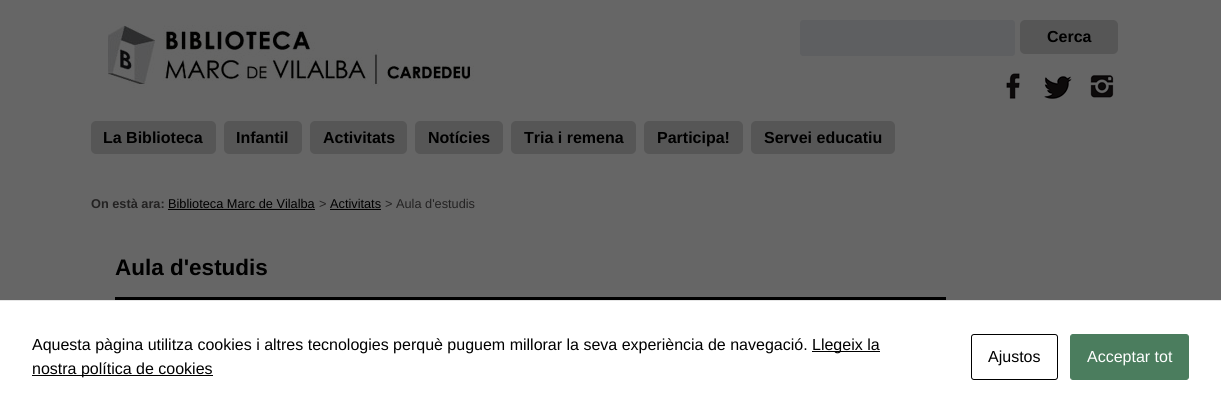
import math
import cairo


def round_path(ctx, x, y, w, h, r):
	ctx.new_sub_path()
	for i, (u, v) in enumerate([(x + w - r, y + h - r), (x + r, y + h - r), (x + r, y + r), (x + w - r, y + r)]):
		ctx.arc(u, v, r, i * math.pi / 2, (i + 1) * math.pi / 2)
	ctx.close_path()

def paste(ctx, path, x, y, w, h):
	ctx.save()
	ctx.set_source_surface(cairo.ImageSurface.create_from_png(path), x, y)
	ctx.rectangle(x, y, w, h)
	ctx.fill()
	ctx.restore()

def draw(ctx):
	ctx.set_source_rgb(0.4, 0.4, 0.4)
	ctx.paint()
	paste(ctx, 'media/1.png', 108, 25, 366, 63)
	ctx.set_source_rgb(0.369, 0.373, 0.38)
	round_path(ctx, 800, 20, 215, 36, 3)
	ctx.fill()
	ctx.set_source_rgb(0.337, 0.337, 0.337)
	round_path(ctx, 1020, 20, 98, 34, 5)
	ctx.fill()
	ctx.select_font_face('Liberation Sans', cairo.FONT_SLANT_NORMAL, cairo.FONT_WEIGHT_BOLD)
	ctx.set_font_size(16)
	ctx.set_source_rgb(0, 0, 0)
	ctx.move_to(1047, 42)
	ctx.show_text('Cerca')
	paste(ctx, 'media/2.png', 1006, 73, 14, 26)
	paste(ctx, 'media/3.png', 1044, 76, 28, 23)
	paste(ctx, 'media/4.png', 1090, 75, 24, 23)
	ctx.set_source_rgb(0.337, 0.337, 0.337)
	round_path(ctx, 91, 121, 125, 33, 5)
	ctx.fill()
	ctx.set_source_rgb(0, 0, 0)
	ctx.move_to(103, 143)
	ctx.show_text('La Biblioteca')
	ctx.set_source_rgb(0.337, 0.337, 0.337)
	round_path(ctx, 224, 121, 78, 33, 5)
	ctx.fill()
	ctx.set_source_rgb(0, 0, 0)
	ctx.move_to(236, 143)
	ctx.show_text('Infantil')
	ctx.set_source_rgb(0.337, 0.337, 0.337)
	round_path(ctx, 310, 121, 97, 33, 5)
	ctx.fill()
	ctx.set_source_rgb(0, 0, 0)
	ctx.move_to(323, 143)
	ctx.show_text('Activitats')
	ctx.set_source_rgb(0.337, 0.337, 0.337)
	round_path(ctx, 415, 121, 88, 33, 5)
	ctx.fill()
	ctx.set_source_rgb(0, 0, 0)
	ctx.move_to(428, 143)
	ctx.show_text('Notícies')
	ctx.set_source_rgb(0.337, 0.337, 0.337)
	round_path(ctx, 511, 121, 125, 33, 5)
	ctx.fill()
	ctx.set_source_rgb(0, 0, 0)
	ctx.move_to(524, 143)
	ctx.show_text('Tria i remena')
	ctx.set_source_rgb(0.337, 0.337, 0.337)
	round_path(ctx, 644, 121, 99, 33, 5)
	ctx.fill()
	ctx.set_source_rgb(0, 0, 0)
	ctx.move_to(657, 143)
	ctx.show_text('Participa!')
	ctx.set_source_rgb(0.337, 0.337, 0.337)
	round_path(ctx, 751, 121, 144, 33, 5)
	ctx.fill()
	ctx.set_source_rgb(0, 0, 0)
	ctx.move_to(764, 143)
	ctx.show_text('Servei educatiu')
	ctx.set_font_size(12.75)
	ctx.set_source_rgb(0.137, 0.133, 0.133)
	ctx.move_to(91, 208)
	ctx.show_text('On està ara:')
	ctx.select_font_face('Liberation Sans')
	ctx.set_source_rgb(0, 0, 0)
	ctx.move_to(168, 208)
	ctx.show_text('Biblioteca Marc de Vilalba')
	ctx.rectangle(168, 209, 147, 1)
	ctx.fill()
	ctx.set_source_rgb(0.137, 0.133, 0.133)
	ctx.move_to(319, 208)
	ctx.show_text('>')
	ctx.set_source_rgb(0, 0, 0)
	ctx.move_to(330, 208)
	ctx.show_text('Activitats')
	ctx.rectangle(330, 209, 51, 1)
	ctx.fill()
	ctx.set_source_rgb(0.137, 0.133, 0.133)
	ctx.move_to(385, 208)
	ctx.show_text('> Aula d\'estudis')
	ctx.set_source_rgb(0, 0, 0)
	ctx.rectangle(115, 297, 831, 3)
	ctx.fill()
	ctx.select_font_face('Liberation Sans', cairo.FONT_SLANT_NORMAL, cairo.FONT_WEIGHT_BOLD)
	ctx.set_font_size(22.5)
	ctx.move_to(115, 275)
	ctx.show_text('Aula d\'estudis')
	ctx.set_source_rgb(1, 1, 1)
	ctx.rectangle(0, 301, 1221, 112)
	ctx.fill()
	ctx.set_source_rgb(0.902, 0.902, 0.902)
	ctx.rectangle(0, 300, 1221, 1)
	ctx.fill()
	ctx.select_font_face('Liberation Sans')
	ctx.set_font_size(16)
	ctx.set_source_rgb(0, 0, 0)
	ctx.move_to(32, 350)
	ctx.show_text('Aquesta pàgina utilitza cookies i altres tecnologies perquè puguem millorar la seva experiència de navegació.')
	ctx.rectangle(812, 351, 68, 1)
	ctx.fill()
	ctx.move_to(812, 350)
	ctx.show_text('Llegeix la')
	ctx.rectangle(32, 375, 181, 1)
	ctx.fill()
	ctx.move_to(32, 374)
	ctx.show_text('nostra política de cookies')
	round_path(ctx, 971.5, 334.5, 86, 45, 2.5)
	ctx.set_line_width(1)
	ctx.stroke()
	ctx.move_to(988, 362)
	ctx.show_text('Ajustos')
	ctx.set_source_rgb(0.294, 0.49, 0.369)
	round_path(ctx, 1070.5, 334.5, 118, 45, 2.5)
	ctx.fill_preserve()
	ctx.stroke()
	ctx.set_source_rgb(1, 1, 1)
	ctx.move_to(1087, 362)
	ctx.show_text('Acceptar tot')


surface = cairo.ImageSurface(cairo.FORMAT_RGB24, 1221, 413)
ctx = cairo.Context(surface)
options = cairo.FontOptions()
options.set_hint_metrics(cairo.HINT_METRICS_OFF)
options.set_hint_style(cairo.HINT_STYLE_NONE)
ctx.set_font_options(options)
ctx.set_miter_limit(4)
draw(ctx)
surface.write_to_png('image.png')
